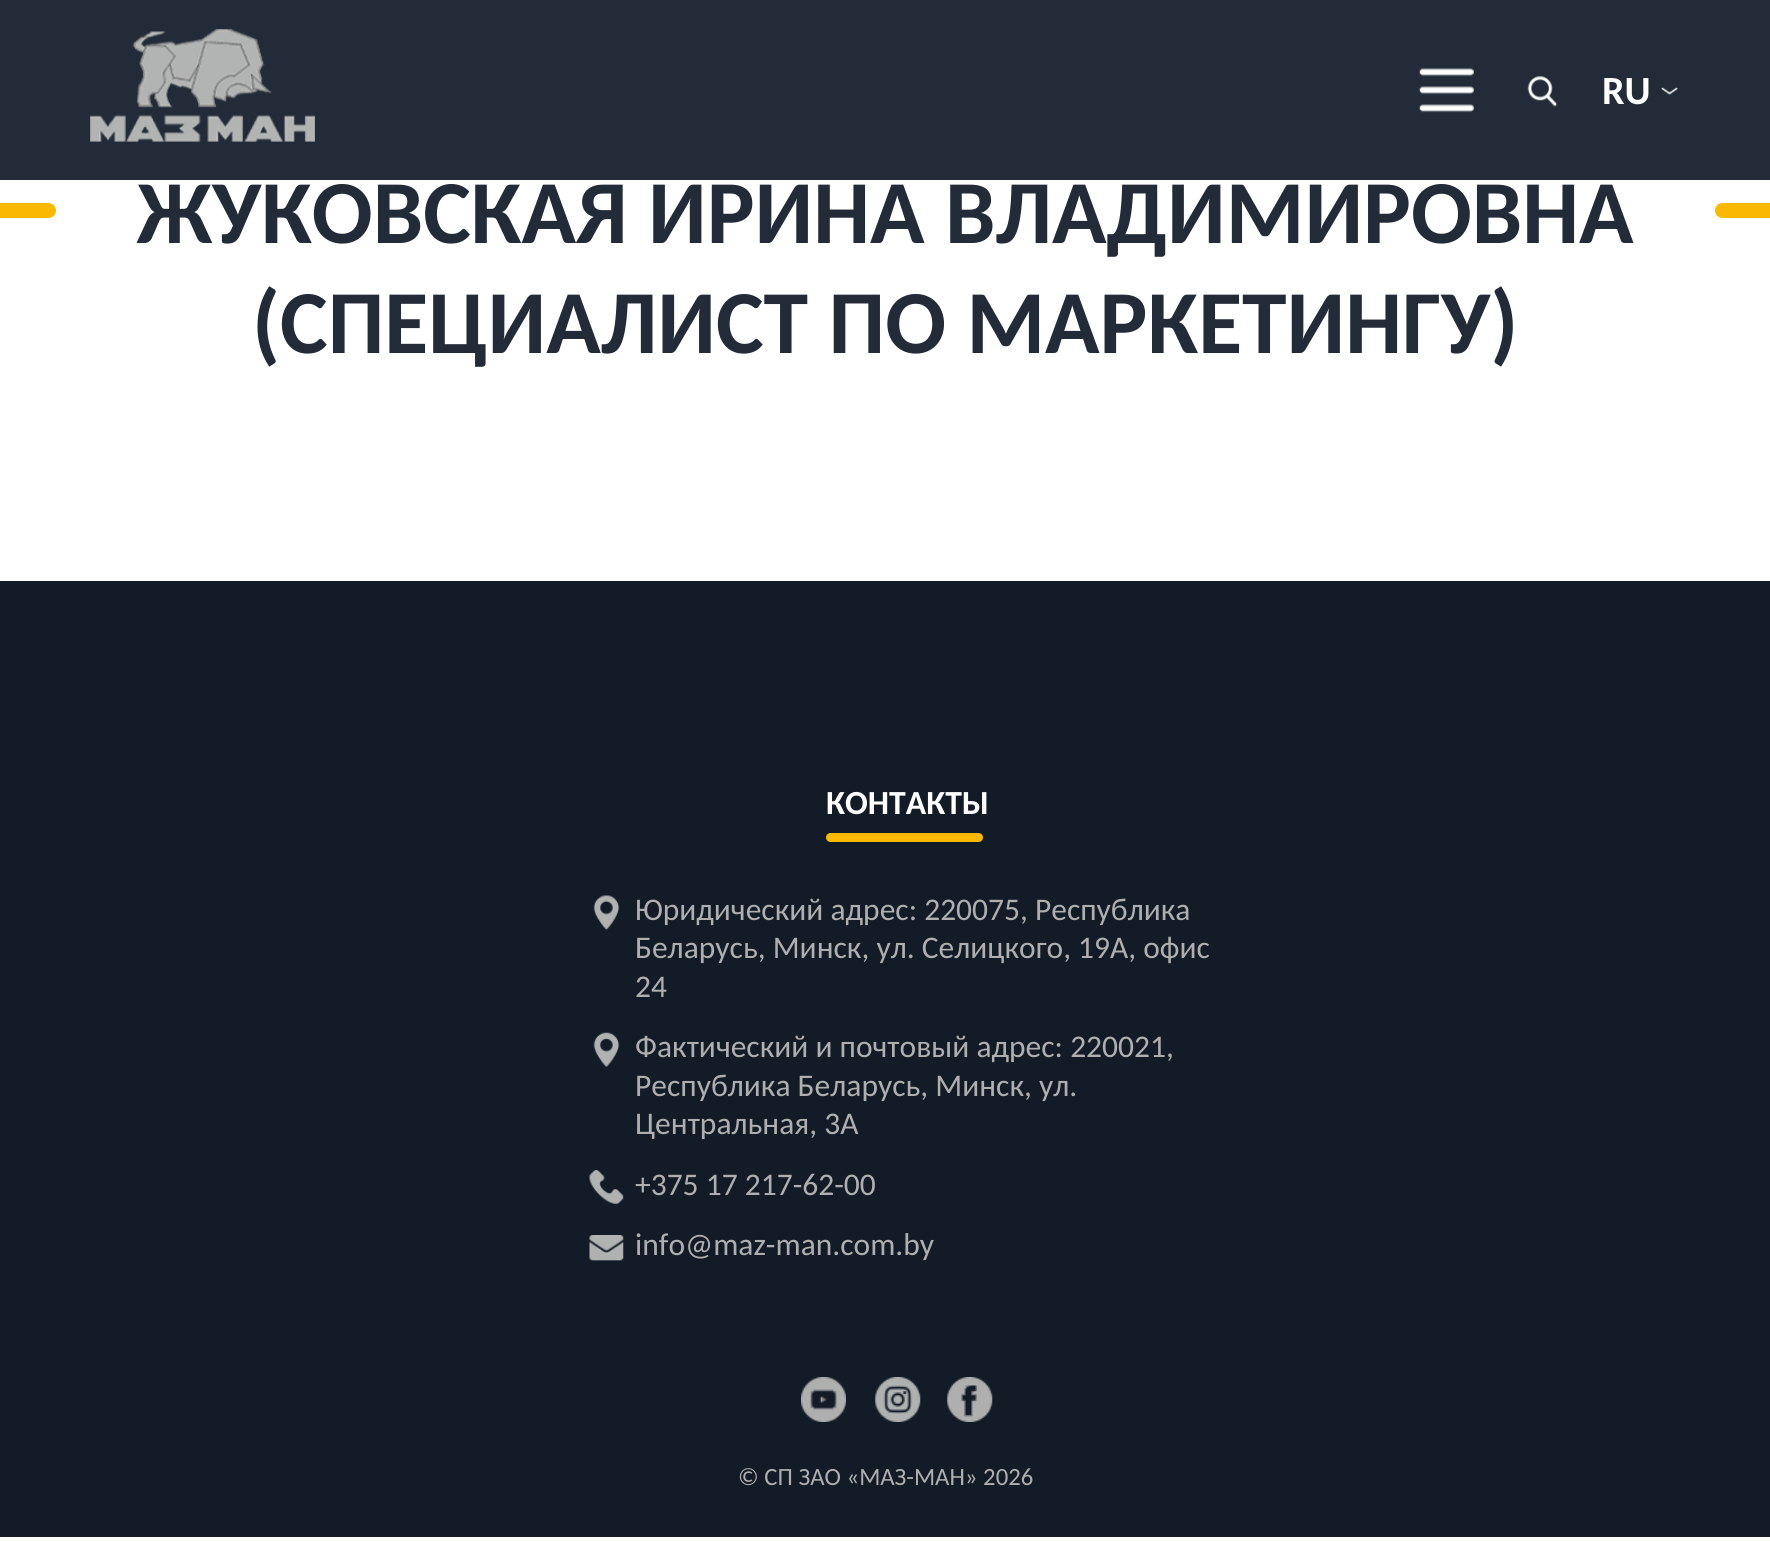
import math
import cairo


def round_path(ctx, x, y, w, h, r):
	ctx.new_sub_path()
	for i, (u, v) in enumerate([(x + w - r, y + h - r), (x + r, y + h - r), (x + r, y + r), (x + w - r, y + r)]):
		ctx.arc(u, v, r, i * math.pi / 2, (i + 1) * math.pi / 2)
	ctx.close_path()

def paste(ctx, path, x, y, w, h):
	ctx.save()
	ctx.set_source_surface(cairo.ImageSurface.create_from_png(path), x, y)
	ctx.rectangle(x, y, w, h)
	ctx.fill()
	ctx.restore()

def draw(ctx):
	ctx.set_source_rgb(1, 1, 1)
	ctx.paint()
	ctx.set_source_rgb(0.133, 0.169, 0.216)
	ctx.rectangle(0, 0, 1770, 180)
	ctx.fill()
	paste(ctx, 'media/1.png', 90, 29, 225, 113)
	paste(ctx, 'media/2.png', 1419, 68, 55, 45)
	paste(ctx, 'media/3.png', 1527, 76, 30, 31)
	ctx.select_font_face('Carlito', cairo.FONT_SLANT_NORMAL, cairo.FONT_WEIGHT_BOLD)
	ctx.set_font_size(40)
	ctx.set_source_rgb(1, 1, 1)
	ctx.move_to(1602, 104)
	ctx.show_text('RU')
	paste(ctx, 'media/4.png', 1661, 87, 17, 8)
	ctx.set_source_rgb(0.98, 0.725, 0)
	round_path(ctx, -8, 203, 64, 15, 7.5)
	ctx.fill()
	ctx.set_font_size(90)
	ctx.set_source_rgb(0.133, 0.169, 0.216)
	ctx.move_to(137, 243)
	ctx.show_text('ЖУКОВСКАЯ ИРИНА ВЛАДИМИРОВНА')
	ctx.set_source_rgb(0.98, 0.725, 0)
	round_path(ctx, 1715, 203, 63, 15, 7.5)
	ctx.fill()
	ctx.set_source_rgb(0.133, 0.169, 0.216)
	ctx.move_to(252, 353)
	ctx.show_text('(СПЕЦИАЛИСТ ПО МАРКЕТИНГУ)')
	ctx.set_source_rgb(0.075, 0.106, 0.149)
	ctx.rectangle(0, 581, 1770, 956)
	ctx.fill()
	ctx.set_font_size(33.75)
	ctx.set_source_rgb(1, 1, 1)
	ctx.move_to(826, 814)
	ctx.show_text('КОНТАКТЫ')
	ctx.set_source_rgb(0.98, 0.725, 0)
	round_path(ctx, 826, 833, 157, 9, 4.5)
	ctx.fill()
	paste(ctx, 'media/5.png', 593, 895, 27, 35)
	ctx.select_font_face('Carlito')
	ctx.set_font_size(31.5)
	ctx.set_source_rgb(0.686, 0.686, 0.686)
	for x, y, s in [
		(635, 920, 'Юридический адрес: 220075, Республика'),
		(635, 958, 'Беларусь, Минск, ул. Селицкого, 19A, офис'),
		(635, 997, '24'),
	]:
		ctx.move_to(x, y)
		ctx.show_text(s)
	paste(ctx, 'media/6.png', 593, 1032, 27, 35)
	for x, y, s in [
		(635, 1057, 'Фактический и почтовый адрес: 220021,'),
		(635, 1096, 'Республика Беларусь, Минск, ул.'),
		(635, 1134, 'Центральная, 3A'),
	]:
		ctx.move_to(x, y)
		ctx.show_text(s)
	paste(ctx, 'media/7.png', 589, 1170, 35, 34)
	ctx.move_to(635, 1195)
	ctx.show_text('+375 17 217-62-00')
	paste(ctx, 'media/8.png', 589, 1235, 35, 26)
	ctx.move_to(635, 1255)
	ctx.show_text('info@maz-man.com.by')
	paste(ctx, 'media/9.png', 801, 1377, 45, 45)
	paste(ctx, 'media/10.png', 875, 1377, 46, 45)
	paste(ctx, 'media/11.png', 947, 1377, 46, 45)
	ctx.set_font_size(24.75)
	ctx.move_to(738, 1485)
	ctx.show_text('© СП ЗАО «МАЗ-МАН» 2026')


surface = cairo.ImageSurface(cairo.FORMAT_RGB24, 1770, 1541)
ctx = cairo.Context(surface)
options = cairo.FontOptions()
options.set_hint_metrics(cairo.HINT_METRICS_OFF)
options.set_hint_style(cairo.HINT_STYLE_NONE)
ctx.set_font_options(options)
ctx.set_miter_limit(4)
draw(ctx)
surface.write_to_png('image.png')
